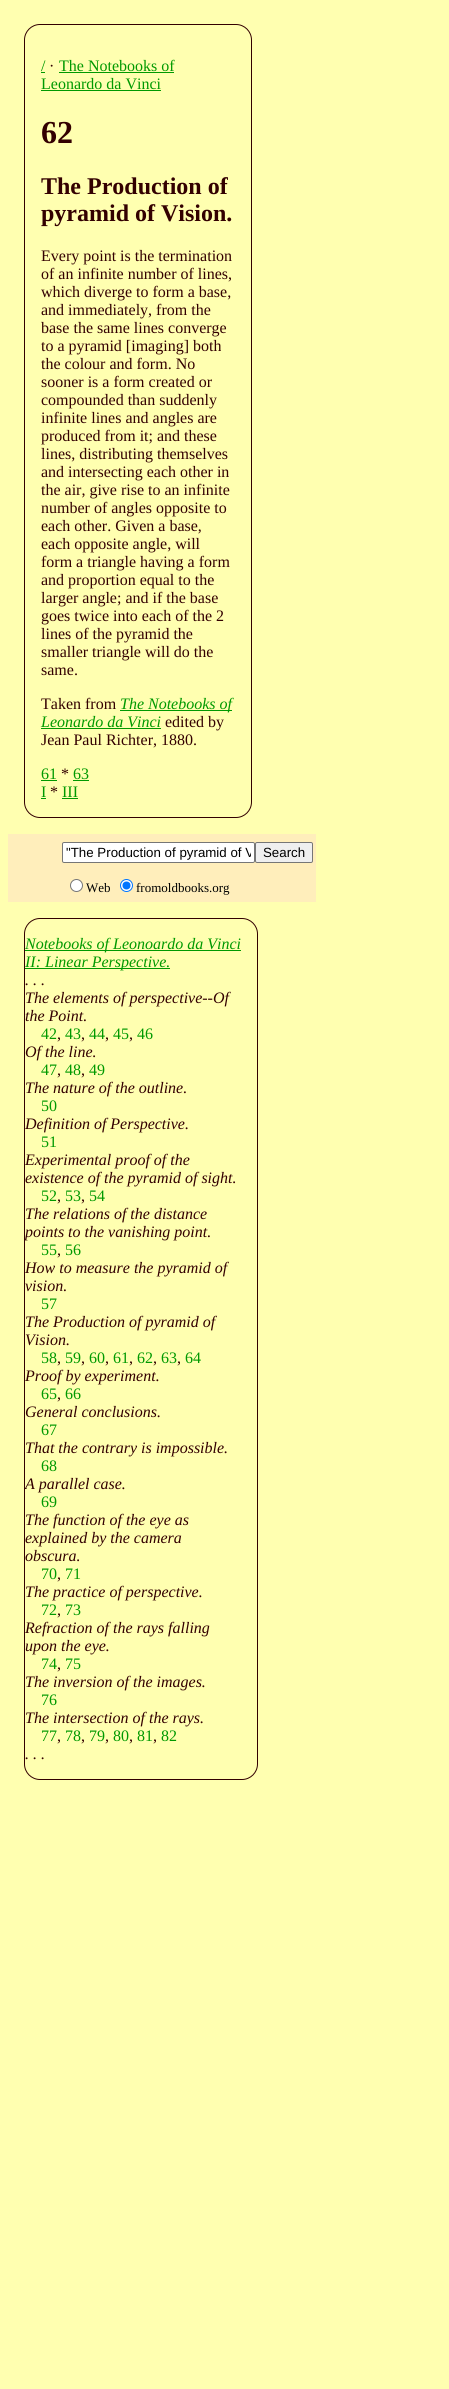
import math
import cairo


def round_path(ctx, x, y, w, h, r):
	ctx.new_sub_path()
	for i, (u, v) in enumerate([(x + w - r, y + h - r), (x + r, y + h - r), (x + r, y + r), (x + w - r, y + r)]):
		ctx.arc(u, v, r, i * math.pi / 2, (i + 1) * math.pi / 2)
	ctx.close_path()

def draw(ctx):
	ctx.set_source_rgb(1, 1, 0.69)
	ctx.paint()
	round_path(ctx, 24.5, 24.5, 227, 793, 15.5)
	ctx.set_source_rgb(0.2, 0, 0)
	ctx.set_line_width(1)
	ctx.stroke()
	ctx.select_font_face('Liberation Serif')
	ctx.set_font_size(16)
	ctx.set_source_rgb(0, 0.6, 0)
	ctx.move_to(41, 71)
	ctx.show_text('/')
	ctx.rectangle(41, 72, 4, 1)
	ctx.fill()
	ctx.set_source_rgb(0.2, 0, 0)
	ctx.move_to(49, 71)
	ctx.show_text('·')
	ctx.set_source_rgb(0, 0.6, 0)
	ctx.move_to(59, 71)
	ctx.show_text('The Notebooks of')
	ctx.rectangle(59, 72, 115, 1)
	ctx.fill()
	ctx.move_to(41, 89)
	ctx.show_text('Leonardo da Vinci')
	ctx.rectangle(41, 90, 120, 1)
	ctx.fill()
	ctx.select_font_face('Liberation Serif', cairo.FONT_SLANT_NORMAL, cairo.FONT_WEIGHT_BOLD)
	ctx.set_font_size(32)
	ctx.set_source_rgb(0.2, 0, 0)
	ctx.move_to(41, 143)
	ctx.show_text('62')
	ctx.set_font_size(24)
	ctx.move_to(41, 194)
	ctx.show_text('The Production of')
	ctx.move_to(41, 221)
	ctx.show_text('pyramid of Vision.')
	ctx.select_font_face('Liberation Serif')
	ctx.set_font_size(16)
	for x, y, s in [
		(41, 261, 'Every point is the termination'),
		(41, 279, 'of an infinite number of lines,'),
		(41, 297, 'which diverge to form a base,'),
		(41, 315, 'and immediately, from the'),
		(41, 333, 'base the same lines converge'),
		(41, 351, 'to a pyramid [imaging] both'),
		(41, 369, 'the colour and form. No'),
		(41, 387, 'sooner is a form created or'),
		(41, 405, 'compounded than suddenly'),
		(41, 423, 'infinite lines and angles are'),
		(41, 441, 'produced from it; and these'),
		(41, 459, 'lines, distributing themselves'),
		(41, 477, 'and intersecting each other in'),
		(41, 495, 'the air, give rise to an infinite'),
		(41, 513, 'number of angles opposite to'),
		(41, 531, 'each other. Given a base,'),
		(41, 549, 'each opposite angle, will'),
		(41, 567, 'form a triangle having a form'),
		(41, 585, 'and proportion equal to the'),
		(41, 603, 'larger angle; and if the base'),
		(41, 621, 'goes twice into each of the 2'),
		(41, 639, 'lines of the pyramid the'),
		(41, 657, 'smaller triangle will do the'),
		(41, 675, 'same.'),
		(41, 709, 'Taken from'),
	]:
		ctx.move_to(x, y)
		ctx.show_text(s)
	ctx.set_source_rgb(0, 0.6, 0)
	ctx.rectangle(120, 710, 112, 1)
	ctx.fill()
	ctx.select_font_face('Liberation Serif', cairo.FONT_SLANT_ITALIC)
	ctx.move_to(120, 709)
	ctx.show_text('The Notebooks of')
	ctx.move_to(41, 727)
	ctx.show_text('Leonardo da Vinci')
	ctx.rectangle(41, 728, 120, 1)
	ctx.fill()
	ctx.select_font_face('Liberation Serif')
	ctx.set_source_rgb(0.2, 0, 0)
	ctx.move_to(165, 727)
	ctx.show_text('edited by')
	ctx.move_to(41, 745)
	ctx.show_text('Jean Paul Richter, 1880.')
	ctx.set_source_rgb(0, 0.6, 0)
	ctx.move_to(41, 779)
	ctx.show_text('61')
	ctx.rectangle(41, 780, 16, 1)
	ctx.fill()
	ctx.set_source_rgb(0.2, 0, 0)
	ctx.move_to(61, 779)
	ctx.show_text('*')
	ctx.set_source_rgb(0, 0.6, 0)
	ctx.move_to(73, 779)
	ctx.show_text('63')
	ctx.rectangle(73, 780, 16, 1)
	ctx.fill()
	ctx.move_to(41, 797)
	ctx.show_text('I')
	ctx.rectangle(41, 798, 5, 1)
	ctx.fill()
	ctx.set_source_rgb(0.2, 0, 0)
	ctx.move_to(50, 797)
	ctx.show_text('*')
	ctx.set_source_rgb(0, 0.6, 0)
	ctx.move_to(62, 797)
	ctx.show_text('III')
	ctx.rectangle(62, 798, 16, 1)
	ctx.fill()
	ctx.set_source_rgb(1, 0.933, 0.733)
	ctx.rectangle(8, 834, 308, 68)
	ctx.fill()
	ctx.set_source_rgb(1, 1, 1)
	round_path(ctx, 62.5, 842.5, 192, 20, 1.5)
	ctx.fill_preserve()
	ctx.set_source_rgb(0.463, 0.463, 0.463)
	ctx.stroke()
	ctx.save()
	ctx.rectangle(66, 845, 185, 15)
	ctx.clip()
	ctx.select_font_face('Liberation Sans')
	ctx.set_font_size(13.3)
	ctx.set_source_rgb(0, 0, 0)
	ctx.move_to(66, 857)
	ctx.show_text('"The Production of pyramid of V')
	ctx.restore()
	ctx.set_source_rgb(0.937, 0.937, 0.937)
	round_path(ctx, 255.5, 842.5, 57, 20, 1.5)
	ctx.fill_preserve()
	ctx.set_source_rgb(0.463, 0.463, 0.463)
	ctx.stroke()
	ctx.select_font_face('Liberation Sans')
	ctx.set_font_size(13.3)
	ctx.set_source_rgb(0, 0, 0)
	ctx.move_to(263, 857)
	ctx.show_text('Search')
	ctx.set_source_rgb(1, 1, 1)
	ctx.new_path()
	ctx.arc(76.5, 885.5, 6, 0, 2 * math.pi)
	ctx.fill_preserve()
	ctx.set_source_rgb(0.463, 0.463, 0.463)
	ctx.stroke()
	ctx.select_font_face('Liberation Serif')
	ctx.set_font_size(13)
	ctx.set_source_rgb(0, 0, 0)
	ctx.move_to(86, 892)
	ctx.show_text('Web')
	ctx.set_source_rgb(1, 1, 1)
	ctx.new_path()
	ctx.arc(126.5, 885.5, 6, 0, 2 * math.pi)
	ctx.fill_preserve()
	ctx.set_source_rgb(0, 0.459, 1)
	ctx.stroke()
	ctx.arc(126.5, 885.5, 4, 0, 2 * math.pi)
	ctx.fill()
	ctx.set_source_rgb(0, 0, 0)
	ctx.move_to(136, 892)
	ctx.show_text('fromoldbooks.org')
	round_path(ctx, 24.5, 918.5, 233, 861, 15.5)
	ctx.set_source_rgb(0.2, 0, 0)
	ctx.stroke()
	ctx.set_source_rgb(0, 0.6, 0)
	ctx.rectangle(25, 950, 216, 1)
	ctx.fill()
	ctx.select_font_face('Liberation Serif', cairo.FONT_SLANT_ITALIC)
	ctx.set_font_size(16)
	ctx.move_to(25, 949)
	ctx.show_text('Notebooks of Leonoardo da Vinci')
	ctx.rectangle(25, 968, 145, 1)
	ctx.fill()
	ctx.move_to(25, 967)
	ctx.show_text('II: Linear Perspective.')
	ctx.set_source_rgb(0.2, 0, 0)
	for x, y, s in [
		(25, 985, '. . .'),
		(25, 1003, 'The elements of perspective--Of'),
		(25, 1021, 'the Point.'),
	]:
		ctx.move_to(x, y)
		ctx.show_text(s)
	ctx.select_font_face('Liberation Serif')
	ctx.set_source_rgb(0, 0.6, 0)
	ctx.move_to(41, 1039)
	ctx.show_text('42')
	ctx.set_source_rgb(0.2, 0, 0)
	ctx.move_to(57, 1039)
	ctx.show_text(',')
	ctx.set_source_rgb(0, 0.6, 0)
	ctx.move_to(65, 1039)
	ctx.show_text('43')
	ctx.set_source_rgb(0.2, 0, 0)
	ctx.move_to(81, 1039)
	ctx.show_text(',')
	ctx.set_source_rgb(0, 0.6, 0)
	ctx.move_to(89, 1039)
	ctx.show_text('44')
	ctx.set_source_rgb(0.2, 0, 0)
	ctx.move_to(105, 1039)
	ctx.show_text(',')
	ctx.set_source_rgb(0, 0.6, 0)
	ctx.move_to(113, 1039)
	ctx.show_text('45')
	ctx.set_source_rgb(0.2, 0, 0)
	ctx.move_to(129, 1039)
	ctx.show_text(',')
	ctx.set_source_rgb(0, 0.6, 0)
	ctx.move_to(137, 1039)
	ctx.show_text('46')
	ctx.select_font_face('Liberation Serif', cairo.FONT_SLANT_ITALIC)
	ctx.set_source_rgb(0.2, 0, 0)
	ctx.move_to(25, 1057)
	ctx.show_text('Of the line.')
	ctx.select_font_face('Liberation Serif')
	ctx.set_source_rgb(0, 0.6, 0)
	ctx.move_to(41, 1075)
	ctx.show_text('47')
	ctx.set_source_rgb(0.2, 0, 0)
	ctx.move_to(57, 1075)
	ctx.show_text(',')
	ctx.set_source_rgb(0, 0.6, 0)
	ctx.move_to(65, 1075)
	ctx.show_text('48')
	ctx.set_source_rgb(0.2, 0, 0)
	ctx.move_to(81, 1075)
	ctx.show_text(',')
	ctx.set_source_rgb(0, 0.6, 0)
	ctx.move_to(89, 1075)
	ctx.show_text('49')
	ctx.select_font_face('Liberation Serif', cairo.FONT_SLANT_ITALIC)
	ctx.set_source_rgb(0.2, 0, 0)
	ctx.move_to(25, 1093)
	ctx.show_text('The nature of the outline.')
	ctx.select_font_face('Liberation Serif')
	ctx.set_source_rgb(0, 0.6, 0)
	ctx.move_to(41, 1111)
	ctx.show_text('50')
	ctx.select_font_face('Liberation Serif', cairo.FONT_SLANT_ITALIC)
	ctx.set_source_rgb(0.2, 0, 0)
	ctx.move_to(25, 1129)
	ctx.show_text('Definition of Perspective.')
	ctx.select_font_face('Liberation Serif')
	ctx.set_source_rgb(0, 0.6, 0)
	ctx.move_to(41, 1147)
	ctx.show_text('51')
	ctx.select_font_face('Liberation Serif', cairo.FONT_SLANT_ITALIC)
	ctx.set_source_rgb(0.2, 0, 0)
	ctx.move_to(25, 1165)
	ctx.show_text('Experimental proof of the')
	ctx.move_to(25, 1183)
	ctx.show_text('existence of the pyramid of sight.')
	ctx.select_font_face('Liberation Serif')
	ctx.set_source_rgb(0, 0.6, 0)
	ctx.move_to(41, 1201)
	ctx.show_text('52')
	ctx.set_source_rgb(0.2, 0, 0)
	ctx.move_to(57, 1201)
	ctx.show_text(',')
	ctx.set_source_rgb(0, 0.6, 0)
	ctx.move_to(65, 1201)
	ctx.show_text('53')
	ctx.set_source_rgb(0.2, 0, 0)
	ctx.move_to(81, 1201)
	ctx.show_text(',')
	ctx.set_source_rgb(0, 0.6, 0)
	ctx.move_to(89, 1201)
	ctx.show_text('54')
	ctx.select_font_face('Liberation Serif', cairo.FONT_SLANT_ITALIC)
	ctx.set_source_rgb(0.2, 0, 0)
	ctx.move_to(25, 1219)
	ctx.show_text('The relations of the distance')
	ctx.move_to(25, 1237)
	ctx.show_text('points to the vanishing point.')
	ctx.select_font_face('Liberation Serif')
	ctx.set_source_rgb(0, 0.6, 0)
	ctx.move_to(41, 1255)
	ctx.show_text('55')
	ctx.set_source_rgb(0.2, 0, 0)
	ctx.move_to(57, 1255)
	ctx.show_text(',')
	ctx.set_source_rgb(0, 0.6, 0)
	ctx.move_to(65, 1255)
	ctx.show_text('56')
	ctx.select_font_face('Liberation Serif', cairo.FONT_SLANT_ITALIC)
	ctx.set_source_rgb(0.2, 0, 0)
	ctx.move_to(25, 1273)
	ctx.show_text('How to measure the pyramid of')
	ctx.move_to(25, 1291)
	ctx.show_text('vision.')
	ctx.select_font_face('Liberation Serif')
	ctx.set_source_rgb(0, 0.6, 0)
	ctx.move_to(41, 1309)
	ctx.show_text('57')
	ctx.select_font_face('Liberation Serif', cairo.FONT_SLANT_ITALIC)
	ctx.set_source_rgb(0.2, 0, 0)
	ctx.move_to(25, 1327)
	ctx.show_text('The Production of pyramid of')
	ctx.move_to(25, 1345)
	ctx.show_text('Vision.')
	ctx.select_font_face('Liberation Serif')
	ctx.set_source_rgb(0, 0.6, 0)
	ctx.move_to(41, 1363)
	ctx.show_text('58')
	ctx.set_source_rgb(0.2, 0, 0)
	ctx.move_to(57, 1363)
	ctx.show_text(',')
	ctx.set_source_rgb(0, 0.6, 0)
	ctx.move_to(65, 1363)
	ctx.show_text('59')
	ctx.set_source_rgb(0.2, 0, 0)
	ctx.move_to(81, 1363)
	ctx.show_text(',')
	ctx.set_source_rgb(0, 0.6, 0)
	ctx.move_to(89, 1363)
	ctx.show_text('60')
	ctx.set_source_rgb(0.2, 0, 0)
	ctx.move_to(105, 1363)
	ctx.show_text(',')
	ctx.set_source_rgb(0, 0.6, 0)
	ctx.move_to(113, 1363)
	ctx.show_text('61')
	ctx.set_source_rgb(0.2, 0, 0)
	ctx.move_to(129, 1363)
	ctx.show_text(',')
	ctx.set_source_rgb(0, 0.6, 0)
	ctx.move_to(137, 1363)
	ctx.show_text('62')
	ctx.set_source_rgb(0.2, 0, 0)
	ctx.move_to(153, 1363)
	ctx.show_text(',')
	ctx.set_source_rgb(0, 0.6, 0)
	ctx.move_to(161, 1363)
	ctx.show_text('63')
	ctx.set_source_rgb(0.2, 0, 0)
	ctx.move_to(177, 1363)
	ctx.show_text(',')
	ctx.set_source_rgb(0, 0.6, 0)
	ctx.move_to(185, 1363)
	ctx.show_text('64')
	ctx.select_font_face('Liberation Serif', cairo.FONT_SLANT_ITALIC)
	ctx.set_source_rgb(0.2, 0, 0)
	ctx.move_to(25, 1381)
	ctx.show_text('Proof by experiment.')
	ctx.select_font_face('Liberation Serif')
	ctx.set_source_rgb(0, 0.6, 0)
	ctx.move_to(41, 1399)
	ctx.show_text('65')
	ctx.set_source_rgb(0.2, 0, 0)
	ctx.move_to(57, 1399)
	ctx.show_text(',')
	ctx.set_source_rgb(0, 0.6, 0)
	ctx.move_to(65, 1399)
	ctx.show_text('66')
	ctx.select_font_face('Liberation Serif', cairo.FONT_SLANT_ITALIC)
	ctx.set_source_rgb(0.2, 0, 0)
	ctx.move_to(25, 1417)
	ctx.show_text('General conclusions.')
	ctx.select_font_face('Liberation Serif')
	ctx.set_source_rgb(0, 0.6, 0)
	ctx.move_to(41, 1435)
	ctx.show_text('67')
	ctx.select_font_face('Liberation Serif', cairo.FONT_SLANT_ITALIC)
	ctx.set_source_rgb(0.2, 0, 0)
	ctx.move_to(25, 1453)
	ctx.show_text('That the contrary is impossible.')
	ctx.select_font_face('Liberation Serif')
	ctx.set_source_rgb(0, 0.6, 0)
	ctx.move_to(41, 1471)
	ctx.show_text('68')
	ctx.select_font_face('Liberation Serif', cairo.FONT_SLANT_ITALIC)
	ctx.set_source_rgb(0.2, 0, 0)
	ctx.move_to(25, 1489)
	ctx.show_text('A parallel case.')
	ctx.select_font_face('Liberation Serif')
	ctx.set_source_rgb(0, 0.6, 0)
	ctx.move_to(41, 1507)
	ctx.show_text('69')
	ctx.select_font_face('Liberation Serif', cairo.FONT_SLANT_ITALIC)
	ctx.set_source_rgb(0.2, 0, 0)
	for x, y, s in [
		(25, 1525, 'The function of the eye as'),
		(25, 1543, 'explained by the camera'),
		(25, 1561, 'obscura.'),
	]:
		ctx.move_to(x, y)
		ctx.show_text(s)
	ctx.select_font_face('Liberation Serif')
	ctx.set_source_rgb(0, 0.6, 0)
	ctx.move_to(41, 1579)
	ctx.show_text('70')
	ctx.move_to(65, 1579)
	ctx.show_text('71')
	ctx.set_source_rgb(0.2, 0, 0)
	ctx.move_to(57, 1579)
	ctx.show_text(',')
	ctx.select_font_face('Liberation Serif', cairo.FONT_SLANT_ITALIC)
	ctx.move_to(25, 1597)
	ctx.show_text('The practice of perspective.')
	ctx.select_font_face('Liberation Serif')
	ctx.set_source_rgb(0, 0.6, 0)
	ctx.move_to(41, 1615)
	ctx.show_text('72')
	ctx.set_source_rgb(0.2, 0, 0)
	ctx.move_to(57, 1615)
	ctx.show_text(',')
	ctx.set_source_rgb(0, 0.6, 0)
	ctx.move_to(65, 1615)
	ctx.show_text('73')
	ctx.select_font_face('Liberation Serif', cairo.FONT_SLANT_ITALIC)
	ctx.set_source_rgb(0.2, 0, 0)
	ctx.move_to(25, 1633)
	ctx.show_text('Refraction of the rays falling')
	ctx.move_to(25, 1651)
	ctx.show_text('upon the eye.')
	ctx.select_font_face('Liberation Serif')
	ctx.set_source_rgb(0, 0.6, 0)
	ctx.move_to(41, 1669)
	ctx.show_text('74')
	ctx.set_source_rgb(0.2, 0, 0)
	ctx.move_to(57, 1669)
	ctx.show_text(',')
	ctx.set_source_rgb(0, 0.6, 0)
	ctx.move_to(65, 1669)
	ctx.show_text('75')
	ctx.select_font_face('Liberation Serif', cairo.FONT_SLANT_ITALIC)
	ctx.set_source_rgb(0.2, 0, 0)
	ctx.move_to(25, 1687)
	ctx.show_text('The inversion of the images.')
	ctx.select_font_face('Liberation Serif')
	ctx.set_source_rgb(0, 0.6, 0)
	ctx.move_to(41, 1705)
	ctx.show_text('76')
	ctx.select_font_face('Liberation Serif', cairo.FONT_SLANT_ITALIC)
	ctx.set_source_rgb(0.2, 0, 0)
	ctx.move_to(25, 1723)
	ctx.show_text('The intersection of the rays.')
	ctx.select_font_face('Liberation Serif')
	ctx.set_source_rgb(0, 0.6, 0)
	ctx.move_to(41, 1741)
	ctx.show_text('77')
	ctx.set_source_rgb(0.2, 0, 0)
	ctx.move_to(57, 1741)
	ctx.show_text(',')
	ctx.set_source_rgb(0, 0.6, 0)
	ctx.move_to(65, 1741)
	ctx.show_text('78')
	ctx.set_source_rgb(0.2, 0, 0)
	ctx.move_to(81, 1741)
	ctx.show_text(',')
	ctx.set_source_rgb(0, 0.6, 0)
	ctx.move_to(89, 1741)
	ctx.show_text('79')
	ctx.set_source_rgb(0.2, 0, 0)
	ctx.move_to(105, 1741)
	ctx.show_text(',')
	ctx.set_source_rgb(0, 0.6, 0)
	ctx.move_to(113, 1741)
	ctx.show_text('80')
	ctx.set_source_rgb(0.2, 0, 0)
	ctx.move_to(129, 1741)
	ctx.show_text(',')
	ctx.set_source_rgb(0, 0.6, 0)
	ctx.move_to(137, 1741)
	ctx.show_text('81')
	ctx.set_source_rgb(0.2, 0, 0)
	ctx.move_to(153, 1741)
	ctx.show_text(',')
	ctx.set_source_rgb(0, 0.6, 0)
	ctx.move_to(161, 1741)
	ctx.show_text('82')
	ctx.select_font_face('Liberation Serif', cairo.FONT_SLANT_ITALIC)
	ctx.set_source_rgb(0.2, 0, 0)
	ctx.move_to(25, 1759)
	ctx.show_text('. . .')


surface = cairo.ImageSurface(cairo.FORMAT_RGB24, 449, 2389)
ctx = cairo.Context(surface)
options = cairo.FontOptions()
options.set_hint_metrics(cairo.HINT_METRICS_OFF)
options.set_hint_style(cairo.HINT_STYLE_NONE)
ctx.set_font_options(options)
ctx.set_miter_limit(4)
draw(ctx)
surface.write_to_png('image.png')
